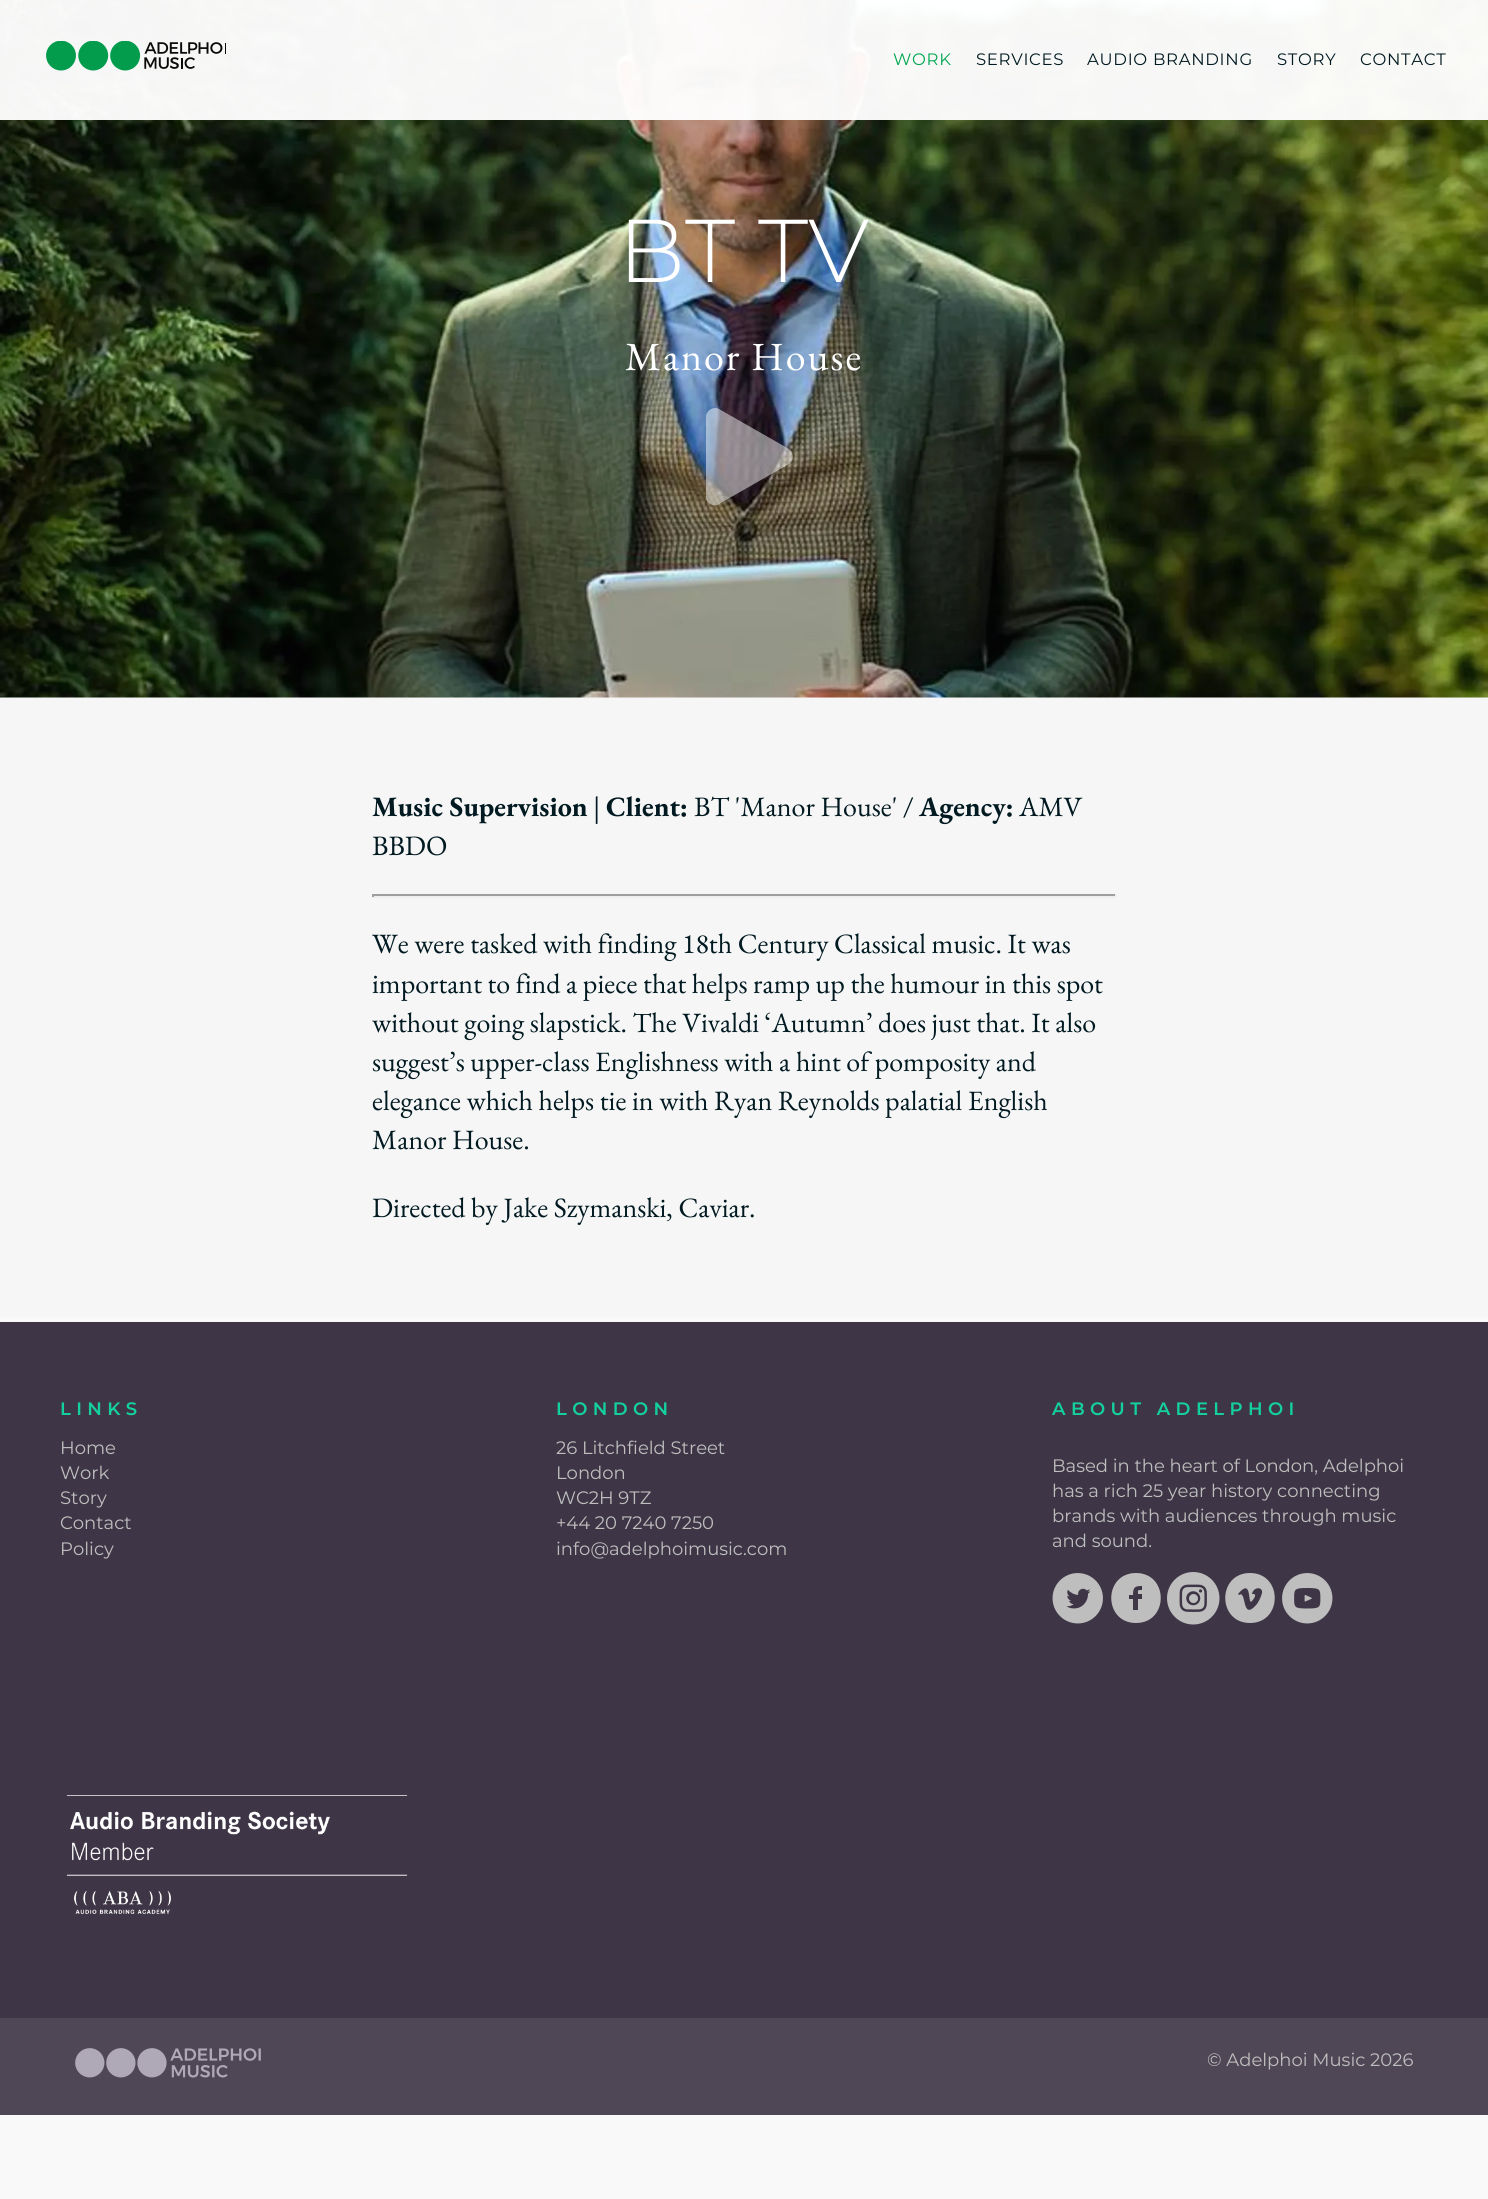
import math
import cairo


def write_spaced(ctx, x, y, s, letter, word):
	ctx.move_to(x, y)
	for ch in s:
		ctx.show_text(ch)
		ctx.rel_move_to(letter + word * (ch == ' '), 0)

def paste(ctx, path, x, y, w, h):
	ctx.save()
	ctx.set_source_surface(cairo.ImageSurface.create_from_png(path), x, y)
	ctx.rectangle(x, y, w, h)
	ctx.fill()
	ctx.restore()

def draw(ctx):
	ctx.set_source_rgb(0.976, 0.976, 0.976)
	ctx.paint()
	ctx.set_source_rgb(0.961, 0.961, 0.961)
	ctx.rectangle(0, 0, 1488, 1317)
	ctx.fill()
	paste(ctx, 'media/2.png', 0, 0, 1488, 698)
	ctx.set_source_rgba(1, 1, 1, 0.96)
	ctx.rectangle(0, 0, 1488, 120)
	ctx.fill()
	paste(ctx, 'media/1.png', 46, 41, 180, 30)
	ctx.select_font_face('Montserrat')
	ctx.set_font_size(16.5)
	ctx.set_source_rgb(0, 0.651, 0.318)
	write_spaced(ctx, 893, 65, 'WORK', 0.7, 0)
	ctx.set_source_rgb(0.004, 0.102, 0.129)
	for x, y, s in [
		(976, 65, 'SERVICES'),
		(1087, 65, 'AUDIO BRANDING'),
		(1277, 65, 'STORY'),
		(1360, 65, 'CONTACT'),
	]:
		write_spaced(ctx, x, y, s, 0.7, 0)
	ctx.select_font_face('Montserrat Light')
	ctx.set_font_size(89)
	ctx.set_source_rgb(1, 1, 1)
	ctx.move_to(618, 282)
	ctx.show_text('BT TV')
	ctx.select_font_face('EB Garamond')
	ctx.set_font_size(40)
	write_spaced(ctx, 625, 370, 'Manor House', 2, 0)
	ctx.set_source_rgba(0.98, 0.98, 0.98, 0.5)
	ctx.new_path()
	ctx.move_to(789, 449)
	ctx.line_to(719, 409)
	ctx.curve_to(714, 406, 706, 410, 706, 417)
	ctx.line_to(706, 497)
	ctx.curve_to(706, 503, 714, 508, 719, 504)
	ctx.line_to(789, 464)
	ctx.curve_to(794, 461, 794, 453, 789, 449)
	ctx.close_path()
	ctx.fill()
	ctx.select_font_face('EB Garamond', cairo.FONT_SLANT_NORMAL, cairo.FONT_WEIGHT_BOLD)
	ctx.set_font_size(28)
	ctx.set_source_rgb(0.004, 0.102, 0.129)
	ctx.move_to(372, 816)
	ctx.show_text('Music Supervision')
	ctx.select_font_face('EB Garamond')
	ctx.move_to(593, 816)
	ctx.show_text('|')
	ctx.select_font_face('EB Garamond', cairo.FONT_SLANT_NORMAL, cairo.FONT_WEIGHT_BOLD)
	ctx.move_to(606, 816)
	ctx.show_text('Client:')
	ctx.select_font_face('EB Garamond')
	ctx.move_to(694, 816)
	ctx.show_text('BT \'Manor House\' /')
	ctx.select_font_face('EB Garamond', cairo.FONT_SLANT_NORMAL, cairo.FONT_WEIGHT_BOLD)
	ctx.move_to(919, 816)
	ctx.show_text('Agency:')
	ctx.select_font_face('EB Garamond')
	ctx.move_to(1019, 816)
	ctx.show_text('AMV')
	ctx.move_to(372, 855)
	ctx.show_text('BBDO')
	ctx.set_source_rgb(0.624, 0.624, 0.624)
	ctx.rectangle(372, 894, 744, 2)
	ctx.fill()
	ctx.set_source_rgb(0.933, 0.933, 0.933)
	ctx.rectangle(1115, 894, 2, 3)
	ctx.rectangle(372, 896, 744, 2)
	ctx.fill()
	ctx.set_source_rgb(0.624, 0.624, 0.624)
	ctx.rectangle(372, 894, 2, 3)
	ctx.fill()
	ctx.set_source_rgb(0.004, 0.102, 0.129)
	for x, y, s in [
		(372, 953, 'We were tasked with finding 18th Century Classical music. It was'),
		(372, 993, 'important to find a piece that helps ramp up the humour in this spot'),
		(372, 1032, 'without going slapstick. The Vivaldi ‘Autumn’ does just that. It also'),
		(372, 1071, 'suggest’s upper-class Englishness with a hint of pomposity and'),
		(372, 1110, 'elegance which helps tie in with Ryan Reynolds palatial English'),
		(372, 1149, 'Manor House.'),
		(372, 1217, 'Directed by Jake Szymanski, Caviar.'),
	]:
		ctx.move_to(x, y)
		ctx.show_text(s)
	ctx.set_source_rgb(0.243, 0.212, 0.275)
	ctx.rectangle(0, 1322, 1488, 696)
	ctx.fill()
	ctx.select_font_face('Montserrat SemiBold')
	ctx.set_font_size(18)
	ctx.set_source_rgb(0.075, 0.816, 0.616)
	write_spaced(ctx, 60, 1415, 'LINKS', 5.4, 0)
	ctx.select_font_face('Montserrat')
	ctx.set_source_rgb(0.745, 0.745, 0.745)
	for x, y, s in [
		(60, 1454, 'Home'),
		(60, 1479, 'Work'),
		(60, 1504, 'Story'),
		(60, 1529, 'Contact'),
		(60, 1555, 'Policy'),
	]:
		ctx.move_to(x, y)
		ctx.show_text(s)
	ctx.select_font_face('Montserrat SemiBold')
	ctx.set_source_rgb(0.075, 0.816, 0.616)
	write_spaced(ctx, 556, 1415, 'LONDON', 5.4, 0)
	ctx.select_font_face('Montserrat')
	ctx.set_source_rgb(0.745, 0.745, 0.745)
	for x, y, s in [
		(556, 1454, '26 Litchfield Street'),
		(556, 1479, 'London'),
		(556, 1504, 'WC2H 9TZ'),
		(556, 1529, '+44 20 7240 7250'),
		(556, 1555, 'info@adelphoimusic.com'),
	]:
		ctx.move_to(x, y)
		ctx.show_text(s)
	ctx.select_font_face('Montserrat SemiBold')
	ctx.set_source_rgb(0.075, 0.816, 0.616)
	write_spaced(ctx, 1052, 1415, 'ABOUT ADELPHOI', 5.4, 0)
	ctx.select_font_face('Montserrat')
	ctx.set_source_rgb(0.745, 0.745, 0.745)
	for x, y, s in [
		(1052, 1472, 'Based in the heart of London, Adelphoi'),
		(1052, 1497, 'has a rich 25 year history connecting'),
		(1052, 1522, 'brands with audiences through music'),
		(1052, 1547, 'and sound.'),
	]:
		ctx.move_to(x, y)
		ctx.show_text(s)
	paste(ctx, 'media/3.png', 1052, 1573, 51, 51)
	ctx.new_path()
	ctx.move_to(1136, 1573)
	ctx.curve_to(1103, 1573, 1103, 1623, 1136, 1623)
	ctx.curve_to(1169, 1623, 1169, 1573, 1136, 1573)
	ctx.close_path()
	ctx.move_to(1142, 1590)
	ctx.curve_to(1137, 1590, 1138, 1590, 1138, 1594)
	ctx.line_to(1142, 1594)
	ctx.line_to(1142, 1599)
	ctx.line_to(1138, 1599)
	ctx.line_to(1138, 1610)
	ctx.line_to(1133, 1610)
	ctx.line_to(1133, 1599)
	ctx.line_to(1129, 1599)
	ctx.line_to(1129, 1595)
	ctx.line_to(1133, 1595)
	ctx.curve_to(1133, 1587, 1135, 1586, 1142, 1586)
	ctx.close_path()
	ctx.fill()
	paste(ctx, 'media/4.png', 1167, 1572, 53, 53)
	ctx.new_path()
	ctx.move_to(1250, 1573)
	ctx.curve_to(1217, 1573, 1217, 1623, 1250, 1623)
	ctx.curve_to(1283, 1623, 1283, 1573, 1250, 1573)
	ctx.close_path()
	ctx.move_to(1262, 1593)
	ctx.curve_to(1261, 1597, 1259, 1601, 1257, 1604)
	ctx.curve_to(1241, 1623, 1247, 1589, 1239, 1595)
	ctx.line_to(1238, 1594)
	ctx.curve_to(1253, 1576, 1247, 1607, 1252, 1601)
	ctx.curve_to(1253, 1600, 1257, 1595, 1254, 1594)
	ctx.line_to(1252, 1594)
	ctx.curve_to(1253, 1587, 1263, 1586, 1262, 1593)
	ctx.close_path()
	ctx.fill()
	paste(ctx, 'media/5.png', 1282, 1573, 51, 51)
	paste(ctx, 'media/6.png', 66, 1795, 342, 119)
	ctx.set_source_rgb(0.31, 0.278, 0.337)
	ctx.rectangle(0, 2018, 1488, 97)
	ctx.fill()
	paste(ctx, 'media/7.png', 75, 2048, 186, 30)
	ctx.set_source_rgb(0.745, 0.745, 0.745)
	ctx.move_to(1207, 2066)
	ctx.show_text('© Adelphoi Music 2026')


surface = cairo.ImageSurface(cairo.FORMAT_RGB24, 1488, 2199)
ctx = cairo.Context(surface)
options = cairo.FontOptions()
options.set_hint_metrics(cairo.HINT_METRICS_OFF)
options.set_hint_style(cairo.HINT_STYLE_NONE)
ctx.set_font_options(options)
ctx.set_miter_limit(4)
draw(ctx)
surface.write_to_png('image.png')
